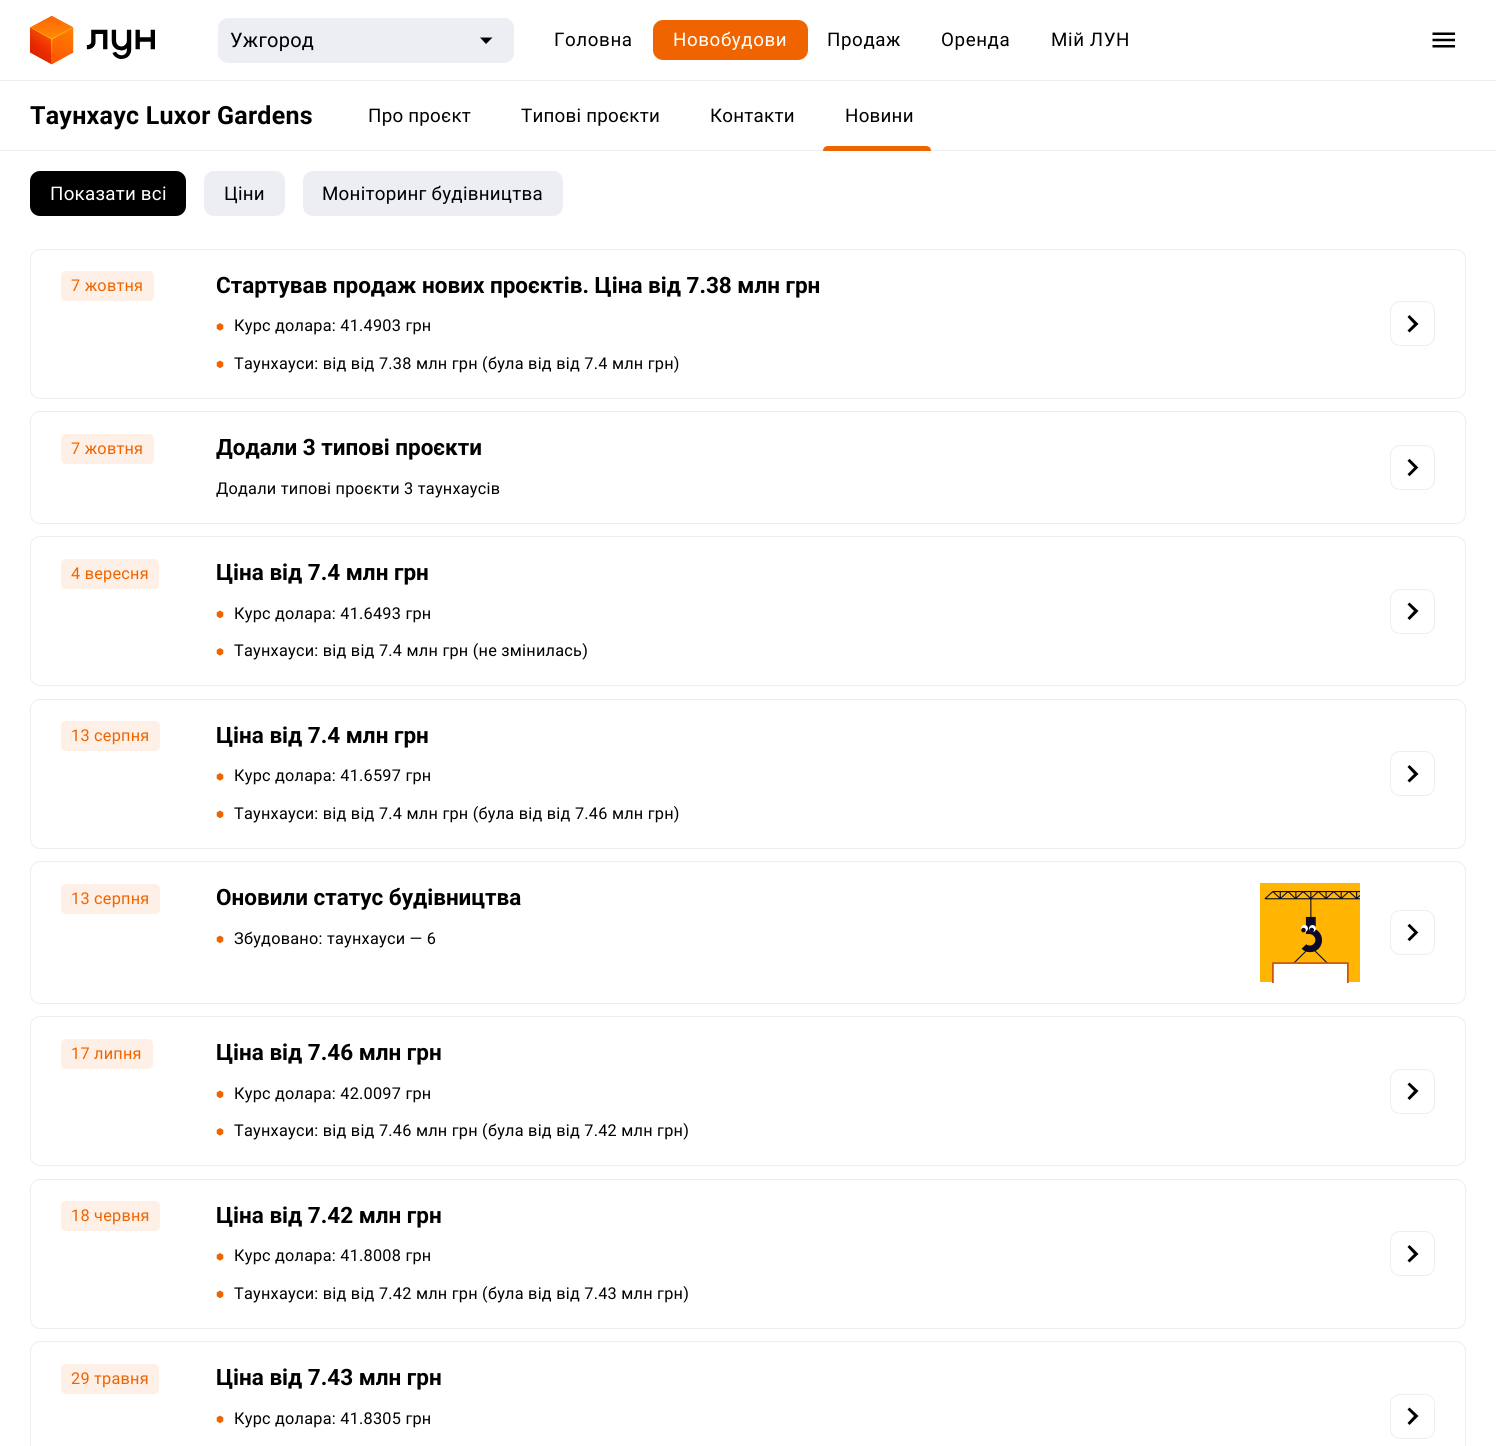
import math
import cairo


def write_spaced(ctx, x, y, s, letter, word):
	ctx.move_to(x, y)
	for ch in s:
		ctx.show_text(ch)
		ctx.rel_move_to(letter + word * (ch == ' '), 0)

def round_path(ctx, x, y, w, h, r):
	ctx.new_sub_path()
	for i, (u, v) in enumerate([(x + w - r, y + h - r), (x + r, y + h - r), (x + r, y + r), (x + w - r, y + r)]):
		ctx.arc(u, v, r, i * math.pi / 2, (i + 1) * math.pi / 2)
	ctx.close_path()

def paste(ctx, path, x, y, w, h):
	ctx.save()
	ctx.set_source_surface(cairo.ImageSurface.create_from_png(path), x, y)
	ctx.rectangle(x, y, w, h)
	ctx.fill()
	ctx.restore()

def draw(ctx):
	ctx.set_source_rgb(1, 1, 1)
	ctx.paint()
	paste(ctx, 'media/1.png', 30, 15, 125, 50)
	ctx.set_source_rgb(0.922, 0.933, 0.957)
	round_path(ctx, 218, 18, 296, 45, 10)
	ctx.fill()
	ctx.select_font_face('Roboto')
	ctx.set_font_size(20)
	ctx.set_source_rgb(0, 0, 0)
	write_spaced(ctx, 230, 47, 'Ужгород', 0.25, 0)
	ctx.new_path()
	ctx.move_to(480, 37.5)
	ctx.line_to(486, 44)
	ctx.line_to(492.5, 37.5)
	ctx.close_path()
	ctx.fill()
	ctx.set_font_size(18.75)
	write_spaced(ctx, 554, 46, 'Головна', 0.6, 0)
	ctx.set_source_rgb(0.941, 0.392, 0)
	round_path(ctx, 653, 20, 155, 40, 10)
	ctx.fill()
	ctx.set_source_rgb(1, 1, 1)
	write_spaced(ctx, 673, 46, 'Новобудови', 0.6, 0)
	ctx.set_source_rgb(0, 0, 0)
	for x, y, s in [
		(827, 46, 'Продаж'),
		(941, 46, 'Оренда'),
		(1051, 46, 'Мій ЛУН'),
	]:
		write_spaced(ctx, x, y, s, 0.6, 0)
	paste(ctx, 'media/2.png', 1432, 32, 23, 16)
	ctx.set_source_rgb(0.922, 0.933, 0.957)
	ctx.rectangle(0, 80, 1496, 1)
	ctx.fill()
	ctx.rectangle(0, 150, 1496, 1)
	ctx.fill()
	ctx.select_font_face('Roboto', cairo.FONT_SLANT_NORMAL, cairo.FONT_WEIGHT_BOLD)
	ctx.set_font_size(25)
	ctx.set_source_rgb(0, 0, 0)
	write_spaced(ctx, 30, 124, 'Таунхаус Luxor Gardens', 0.25, 0)
	ctx.select_font_face('Roboto')
	ctx.set_font_size(18.75)
	for x, y, s in [
		(368, 122, 'Про проєкт'),
		(521, 122, 'Типові проєкти'),
		(710, 122, 'Контакти'),
		(845, 122, 'Новини'),
	]:
		write_spaced(ctx, x, y, s, 0.25, 0)
	ctx.set_source_rgb(0.941, 0.392, 0)
	ctx.new_path()
	ctx.move_to(828, 146)
	ctx.line_to(926, 146)
	ctx.curve_to(929, 146, 931, 148, 931, 151)
	ctx.line_to(823, 151)
	ctx.curve_to(823, 148, 825, 146, 828, 146)
	ctx.close_path()
	ctx.fill()
	ctx.set_source_rgb(0, 0, 0)
	round_path(ctx, 30, 171, 156, 45, 10)
	ctx.fill()
	ctx.set_source_rgb(1, 1, 1)
	write_spaced(ctx, 50, 200, 'Показати всі', 0.25, 0)
	ctx.set_source_rgb(0.922, 0.933, 0.957)
	round_path(ctx, 204, 171, 81, 45, 10)
	ctx.fill()
	ctx.set_source_rgb(0, 0, 0)
	write_spaced(ctx, 224, 200, 'Ціни', 0.25, 0)
	ctx.set_source_rgb(0.922, 0.933, 0.957)
	round_path(ctx, 303, 171, 260, 45, 10)
	ctx.fill()
	ctx.set_source_rgb(0, 0, 0)
	write_spaced(ctx, 322, 200, 'Моніторинг будівництва', 0.25, 0)
	round_path(ctx, 30.5, 249.5, 1435, 149, 9.5)
	ctx.set_source_rgb(0.922, 0.933, 0.957)
	ctx.set_line_width(1)
	ctx.stroke()
	ctx.set_source_rgb(0.996, 0.941, 0.902)
	round_path(ctx, 61, 271, 93, 30, 5)
	ctx.fill()
	ctx.set_font_size(16.25)
	ctx.set_source_rgb(0.941, 0.392, 0)
	write_spaced(ctx, 71, 291, '7 жовтня', 0.25, 0)
	ctx.select_font_face('Roboto', cairo.FONT_SLANT_NORMAL, cairo.FONT_WEIGHT_BOLD)
	ctx.set_font_size(22.5)
	ctx.set_source_rgb(0, 0, 0)
	ctx.move_to(216, 293)
	ctx.show_text('Стартував продаж нових проєктів. Ціна від 7.38 млн грн')
	paste(ctx, 'media/3.png', 216, 323, 8, 8)
	ctx.select_font_face('Roboto')
	ctx.set_font_size(16.25)
	write_spaced(ctx, 234, 331, 'Курс долара: 41.4903 грн', 0.25, 0)
	paste(ctx, 'media/4.png', 216, 360, 8, 9)
	write_spaced(ctx, 234, 369, 'Таунхауси: від від 7.38 млн грн (була від від 7.4 млн грн)', 0.25, 0)
	round_path(ctx, 1390.5, 301.5, 44, 44, 9.5)
	ctx.set_source_rgb(0.922, 0.933, 0.957)
	ctx.stroke()
	ctx.set_source_rgb(0, 0, 0)
	ctx.new_path()
	ctx.move_to(1407.5, 317)
	ctx.line_to(1414, 324)
	ctx.line_to(1407.5, 330.5)
	ctx.line_to(1409.5, 332.5)
	ctx.line_to(1418.5, 324)
	ctx.line_to(1409.5, 315)
	ctx.close_path()
	ctx.fill()
	round_path(ctx, 30.5, 411.5, 1435, 112, 9.5)
	ctx.set_source_rgb(0.922, 0.933, 0.957)
	ctx.stroke()
	ctx.set_source_rgb(0.996, 0.941, 0.902)
	round_path(ctx, 61, 434, 93, 30, 5)
	ctx.fill()
	ctx.set_source_rgb(0.941, 0.392, 0)
	write_spaced(ctx, 71, 454, '7 жовтня', 0.25, 0)
	ctx.select_font_face('Roboto', cairo.FONT_SLANT_NORMAL, cairo.FONT_WEIGHT_BOLD)
	ctx.set_font_size(22.5)
	ctx.set_source_rgb(0, 0, 0)
	ctx.move_to(216, 455)
	ctx.show_text('Додали 3 типові проєкти')
	ctx.select_font_face('Roboto')
	ctx.set_font_size(16.25)
	write_spaced(ctx, 216, 494, 'Додали типові проєкти 3 таунхаусів', 0.25, 0)
	round_path(ctx, 1390.5, 445.5, 44, 44, 9.5)
	ctx.set_source_rgb(0.922, 0.933, 0.957)
	ctx.stroke()
	paste(ctx, 'media/5.png', 1407, 458, 12, 19)
	round_path(ctx, 30.5, 536.5, 1435, 149, 9.5)
	ctx.stroke()
	ctx.set_source_rgb(0.996, 0.941, 0.902)
	round_path(ctx, 61, 559, 98, 30, 5)
	ctx.fill()
	ctx.set_source_rgb(0.941, 0.392, 0)
	write_spaced(ctx, 71, 579, '4 вересня', 0.25, 0)
	ctx.select_font_face('Roboto', cairo.FONT_SLANT_NORMAL, cairo.FONT_WEIGHT_BOLD)
	ctx.set_font_size(22.5)
	ctx.set_source_rgb(0, 0, 0)
	ctx.move_to(216, 580)
	ctx.show_text('Ціна від 7.4 млн грн')
	paste(ctx, 'media/4.png', 216, 610, 8, 9)
	ctx.select_font_face('Roboto')
	ctx.set_font_size(16.25)
	write_spaced(ctx, 234, 619, 'Курс долара: 41.6493 грн', 0.25, 0)
	paste(ctx, 'media/3.png', 216, 648, 8, 8)
	write_spaced(ctx, 234, 656, 'Таунхауси: від від 7.4 млн грн (не змінилась)', 0.25, 0)
	round_path(ctx, 1390.5, 589.5, 44, 44, 9.5)
	ctx.set_source_rgb(0.922, 0.933, 0.957)
	ctx.stroke()
	ctx.set_source_rgb(0, 0, 0)
	ctx.new_path()
	ctx.move_to(1407.5, 604.5)
	ctx.line_to(1414, 611)
	ctx.line_to(1407.5, 618)
	ctx.line_to(1409.5, 620)
	ctx.line_to(1418.5, 611)
	ctx.line_to(1409.5, 602.5)
	ctx.close_path()
	ctx.fill()
	round_path(ctx, 30.5, 699.5, 1435, 149, 9.5)
	ctx.set_source_rgb(0.922, 0.933, 0.957)
	ctx.stroke()
	ctx.set_source_rgb(0.996, 0.941, 0.902)
	round_path(ctx, 61, 721, 99, 30, 5)
	ctx.fill()
	ctx.set_source_rgb(0.941, 0.392, 0)
	write_spaced(ctx, 71, 741, '13 серпня', 0.25, 0)
	ctx.select_font_face('Roboto', cairo.FONT_SLANT_NORMAL, cairo.FONT_WEIGHT_BOLD)
	ctx.set_font_size(22.5)
	ctx.set_source_rgb(0, 0, 0)
	ctx.move_to(216, 743)
	ctx.show_text('Ціна від 7.4 млн грн')
	paste(ctx, 'media/3.png', 216, 773, 8, 8)
	ctx.select_font_face('Roboto')
	ctx.set_font_size(16.25)
	write_spaced(ctx, 234, 781, 'Курс долара: 41.6597 грн', 0.25, 0)
	paste(ctx, 'media/4.png', 216, 810, 8, 9)
	write_spaced(ctx, 234, 819, 'Таунхауси: від від 7.4 млн грн (була від від 7.46 млн грн)', 0.25, 0)
	round_path(ctx, 1390.5, 751.5, 44, 44, 9.5)
	ctx.set_source_rgb(0.922, 0.933, 0.957)
	ctx.stroke()
	ctx.set_source_rgb(0, 0, 0)
	ctx.new_path()
	ctx.move_to(1407.5, 767)
	ctx.line_to(1414, 774)
	ctx.line_to(1407.5, 780.5)
	ctx.line_to(1409.5, 782.5)
	ctx.line_to(1418.5, 774)
	ctx.line_to(1409.5, 765)
	ctx.close_path()
	ctx.fill()
	round_path(ctx, 30.5, 861.5, 1435, 142, 9.5)
	ctx.set_source_rgb(0.922, 0.933, 0.957)
	ctx.stroke()
	ctx.set_source_rgb(0.996, 0.941, 0.902)
	round_path(ctx, 61, 884, 99, 30, 5)
	ctx.fill()
	ctx.set_source_rgb(0.941, 0.392, 0)
	write_spaced(ctx, 71, 904, '13 серпня', 0.25, 0)
	ctx.select_font_face('Roboto', cairo.FONT_SLANT_NORMAL, cairo.FONT_WEIGHT_BOLD)
	ctx.set_font_size(22.5)
	ctx.set_source_rgb(0, 0, 0)
	ctx.move_to(216, 905)
	ctx.show_text('Оновили статус будівництва')
	paste(ctx, 'media/4.png', 216, 935, 8, 9)
	ctx.select_font_face('Roboto')
	ctx.set_font_size(16.25)
	write_spaced(ctx, 234, 944, 'Збудовано: таунхауси — 6', 0.25, 0)
	paste(ctx, 'media/6.png', 1260, 883, 100, 100)
	round_path(ctx, 1390.5, 910.5, 44, 44, 9.5)
	ctx.set_source_rgb(0.922, 0.933, 0.957)
	ctx.stroke()
	paste(ctx, 'media/5.png', 1407, 923, 12, 19)
	round_path(ctx, 30.5, 1016.5, 1435, 149, 9.5)
	ctx.stroke()
	ctx.set_source_rgb(0.996, 0.941, 0.902)
	round_path(ctx, 61, 1039, 92, 30, 5)
	ctx.fill()
	ctx.set_source_rgb(0.941, 0.392, 0)
	write_spaced(ctx, 71, 1059, '17 липня', 0.25, 0)
	ctx.select_font_face('Roboto', cairo.FONT_SLANT_NORMAL, cairo.FONT_WEIGHT_BOLD)
	ctx.set_font_size(22.5)
	ctx.set_source_rgb(0, 0, 0)
	ctx.move_to(216, 1060)
	ctx.show_text('Ціна від 7.46 млн грн')
	paste(ctx, 'media/4.png', 216, 1090, 8, 9)
	ctx.select_font_face('Roboto')
	ctx.set_font_size(16.25)
	write_spaced(ctx, 234, 1099, 'Курс долара: 42.0097 грн', 0.25, 0)
	paste(ctx, 'media/3.png', 216, 1128, 8, 8)
	write_spaced(ctx, 234, 1136, 'Таунхауси: від від 7.46 млн грн (була від від 7.42 млн грн)', 0.25, 0)
	round_path(ctx, 1390.5, 1069.5, 44, 44, 9.5)
	ctx.set_source_rgb(0.922, 0.933, 0.957)
	ctx.stroke()
	ctx.set_source_rgb(0, 0, 0)
	ctx.new_path()
	ctx.move_to(1407.5, 1084.5)
	ctx.line_to(1414, 1091)
	ctx.line_to(1407.5, 1098)
	ctx.line_to(1409.5, 1100)
	ctx.line_to(1418.5, 1091)
	ctx.line_to(1409.5, 1082.5)
	ctx.close_path()
	ctx.fill()
	round_path(ctx, 30.5, 1179.5, 1435, 149, 9.5)
	ctx.set_source_rgb(0.922, 0.933, 0.957)
	ctx.stroke()
	ctx.set_source_rgb(0.996, 0.941, 0.902)
	round_path(ctx, 61, 1201, 99, 30, 5)
	ctx.fill()
	ctx.set_source_rgb(0.941, 0.392, 0)
	write_spaced(ctx, 71, 1221, '18 червня', 0.25, 0)
	ctx.select_font_face('Roboto', cairo.FONT_SLANT_NORMAL, cairo.FONT_WEIGHT_BOLD)
	ctx.set_font_size(22.5)
	ctx.set_source_rgb(0, 0, 0)
	ctx.move_to(216, 1223)
	ctx.show_text('Ціна від 7.42 млн грн')
	paste(ctx, 'media/3.png', 216, 1253, 8, 8)
	ctx.select_font_face('Roboto')
	ctx.set_font_size(16.25)
	write_spaced(ctx, 234, 1261, 'Курс долара: 41.8008 грн', 0.25, 0)
	paste(ctx, 'media/4.png', 216, 1290, 8, 9)
	write_spaced(ctx, 234, 1299, 'Таунхауси: від від 7.42 млн грн (була від від 7.43 млн грн)', 0.25, 0)
	round_path(ctx, 1390.5, 1231.5, 44, 44, 9.5)
	ctx.set_source_rgb(0.922, 0.933, 0.957)
	ctx.stroke()
	ctx.set_source_rgb(0, 0, 0)
	ctx.new_path()
	ctx.move_to(1407.5, 1247)
	ctx.line_to(1414, 1254)
	ctx.line_to(1407.5, 1260.5)
	ctx.line_to(1409.5, 1262.5)
	ctx.line_to(1418.5, 1254)
	ctx.line_to(1409.5, 1245)
	ctx.close_path()
	ctx.fill()
	round_path(ctx, 30.5, 1341.5, 1435, 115, 9.5)
	ctx.set_source_rgb(0.922, 0.933, 0.957)
	ctx.stroke()
	ctx.set_source_rgb(0.996, 0.941, 0.902)
	round_path(ctx, 61, 1364, 98, 30, 5)
	ctx.fill()
	ctx.set_source_rgb(0.941, 0.392, 0)
	write_spaced(ctx, 71, 1384, '29 травня', 0.25, 0)
	ctx.select_font_face('Roboto', cairo.FONT_SLANT_NORMAL, cairo.FONT_WEIGHT_BOLD)
	ctx.set_font_size(22.5)
	ctx.set_source_rgb(0, 0, 0)
	ctx.move_to(216, 1385)
	ctx.show_text('Ціна від 7.43 млн грн')
	paste(ctx, 'media/4.png', 216, 1415, 8, 9)
	ctx.select_font_face('Roboto')
	ctx.set_font_size(16.25)
	write_spaced(ctx, 234, 1424, 'Курс долара: 41.8305 грн', 0.25, 0)
	round_path(ctx, 1390.5, 1394.5, 44, 44, 9.5)
	ctx.set_source_rgb(0.922, 0.933, 0.957)
	ctx.stroke()
	ctx.set_source_rgb(0, 0, 0)
	ctx.new_path()
	ctx.move_to(1407.5, 1409.5)
	ctx.line_to(1414, 1416)
	ctx.line_to(1407.5, 1423)
	ctx.line_to(1409.5, 1425)
	ctx.line_to(1418.5, 1416)
	ctx.line_to(1409.5, 1407.5)
	ctx.close_path()
	ctx.fill()


surface = cairo.ImageSurface(cairo.FORMAT_RGB24, 1496, 1446)
ctx = cairo.Context(surface)
options = cairo.FontOptions()
options.set_hint_metrics(cairo.HINT_METRICS_OFF)
options.set_hint_style(cairo.HINT_STYLE_NONE)
ctx.set_font_options(options)
ctx.set_miter_limit(4)
draw(ctx)
surface.write_to_png('image.png')
